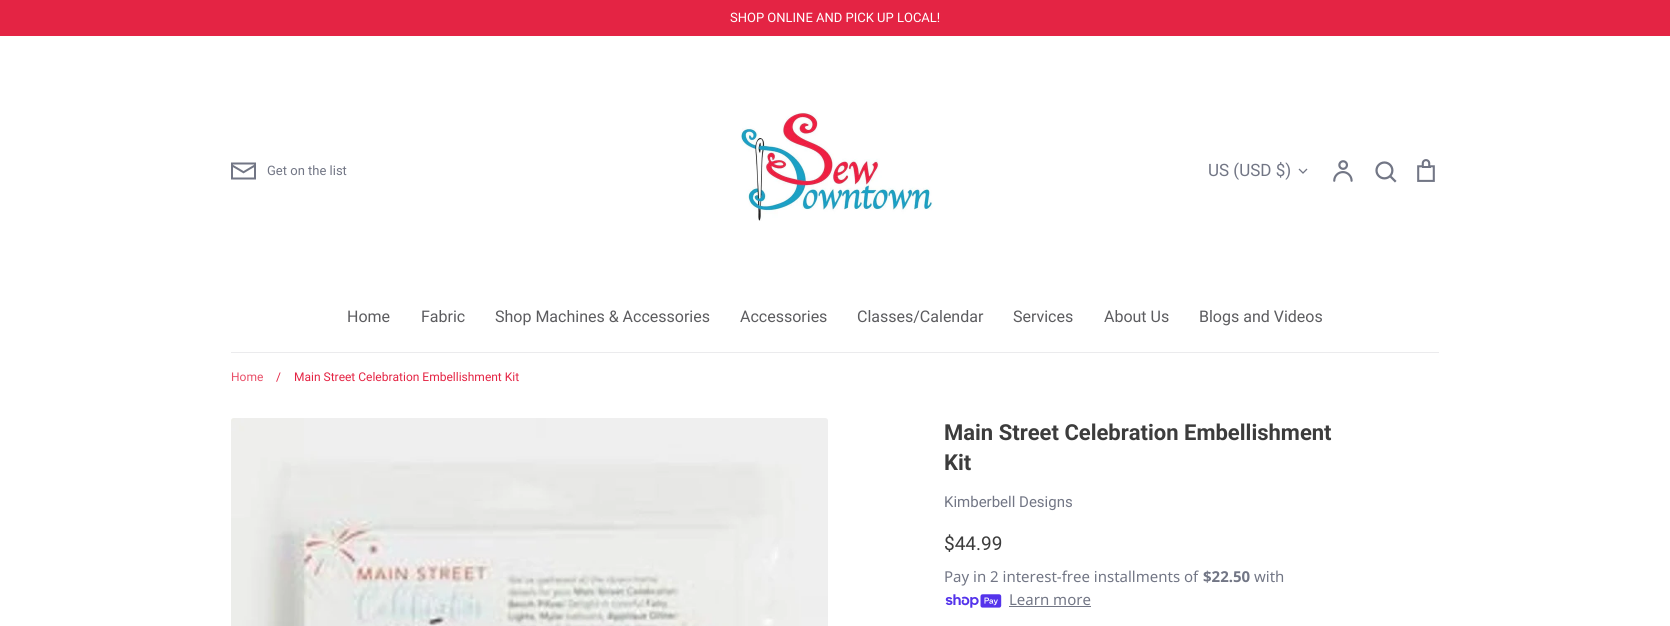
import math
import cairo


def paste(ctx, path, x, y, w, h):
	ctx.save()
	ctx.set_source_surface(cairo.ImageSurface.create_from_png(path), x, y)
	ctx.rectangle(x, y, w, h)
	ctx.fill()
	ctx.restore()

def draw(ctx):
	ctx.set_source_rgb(1, 1, 1)
	ctx.paint()
	ctx.set_source_rgb(0.894, 0.141, 0.267)
	ctx.rectangle(0, 0, 1670, 36)
	ctx.fill()
	ctx.select_font_face('Roboto')
	ctx.set_font_size(13)
	ctx.set_source_rgb(1, 1, 1)
	ctx.move_to(730, 22)
	ctx.show_text('SHOP ONLINE AND PICK UP LOCAL!')
	paste(ctx, 'media/1.png', 231, 162, 25, 18)
	ctx.set_source_rgb(0.447, 0.463, 0.522)
	ctx.move_to(267, 175)
	ctx.show_text('Get on the list')
	paste(ctx, 'media/2.png', 740, 110, 193, 111)
	ctx.set_font_size(17)
	ctx.move_to(1208, 176)
	ctx.show_text('US (USD $)')
	ctx.new_path()
	ctx.move_to(1299, 169)
	ctx.line_to(1303, 173)
	ctx.line_to(1307, 169)
	ctx.set_line_width(1.3)
	ctx.stroke()
	paste(ctx, 'media/3.png', 1333, 160, 20, 22)
	paste(ctx, 'media/4.png', 1375, 161, 22, 22)
	paste(ctx, 'media/5.png', 1417, 159, 18, 23)
	ctx.set_source_rgb(0.918, 0.918, 0.929)
	ctx.rectangle(231, 352, 1208, 1)
	ctx.fill()
	ctx.set_font_size(16)
	ctx.set_source_rgb(0.361, 0.361, 0.373)
	for x, y, s in [
		(347, 322, 'Home'),
		(421, 322, 'Fabric'),
		(495, 322, 'Shop Machines & Accessories'),
		(740, 322, 'Accessories'),
		(857, 322, 'Classes/Calendar'),
		(1013, 322, 'Services'),
		(1104, 322, 'About Us'),
		(1199, 322, 'Blogs and Videos'),
	]:
		ctx.move_to(x, y)
		ctx.show_text(s)
	ctx.set_font_size(12)
	ctx.set_source_rgb(0.914, 0.314, 0.412)
	ctx.move_to(231, 381)
	ctx.show_text('Home')
	ctx.set_source_rgb(0.894, 0.141, 0.267)
	ctx.move_to(276, 381)
	ctx.show_text('/')
	ctx.move_to(294, 381)
	ctx.show_text('Main Street Celebration Embellishment Kit')
	paste(ctx, 'media/6.png', 231, 418, 597, 208)
	ctx.select_font_face('Roboto', cairo.FONT_SLANT_NORMAL, cairo.FONT_WEIGHT_BOLD)
	ctx.set_font_size(22)
	ctx.set_source_rgb(0.235, 0.235, 0.235)
	ctx.move_to(944, 440)
	ctx.show_text('Main Street Celebration Embellishment')
	ctx.move_to(944, 470)
	ctx.show_text('Kit')
	ctx.select_font_face('Roboto')
	ctx.set_font_size(15)
	ctx.set_source_rgb(0.447, 0.463, 0.522)
	ctx.move_to(944, 507)
	ctx.show_text('Kimberbell Designs')
	ctx.set_font_size(19)
	ctx.set_source_rgb(0.235, 0.235, 0.235)
	ctx.move_to(944, 550)
	ctx.show_text('$44.99')
	ctx.select_font_face('Noto Sans')
	ctx.set_font_size(15)
	ctx.set_source_rgb(0.447, 0.463, 0.522)
	ctx.move_to(944, 582)
	ctx.show_text('Pay in 2 interest-free installments of')
	ctx.select_font_face('Noto Sans', cairo.FONT_SLANT_NORMAL, cairo.FONT_WEIGHT_BOLD)
	ctx.move_to(1203, 582)
	ctx.show_text('$22.50')
	ctx.select_font_face('Noto Sans')
	ctx.move_to(1254, 582)
	ctx.show_text('with')
	paste(ctx, 'media/7.png', 945, 594, 57, 14)
	ctx.move_to(1009, 605)
	ctx.show_text('Learn more')
	ctx.rectangle(1009, 606, 82, 1)
	ctx.fill()


surface = cairo.ImageSurface(cairo.FORMAT_RGB24, 1670, 626)
ctx = cairo.Context(surface)
options = cairo.FontOptions()
options.set_hint_metrics(cairo.HINT_METRICS_OFF)
options.set_hint_style(cairo.HINT_STYLE_NONE)
ctx.set_font_options(options)
ctx.set_miter_limit(4)
draw(ctx)
surface.write_to_png('image.png')
